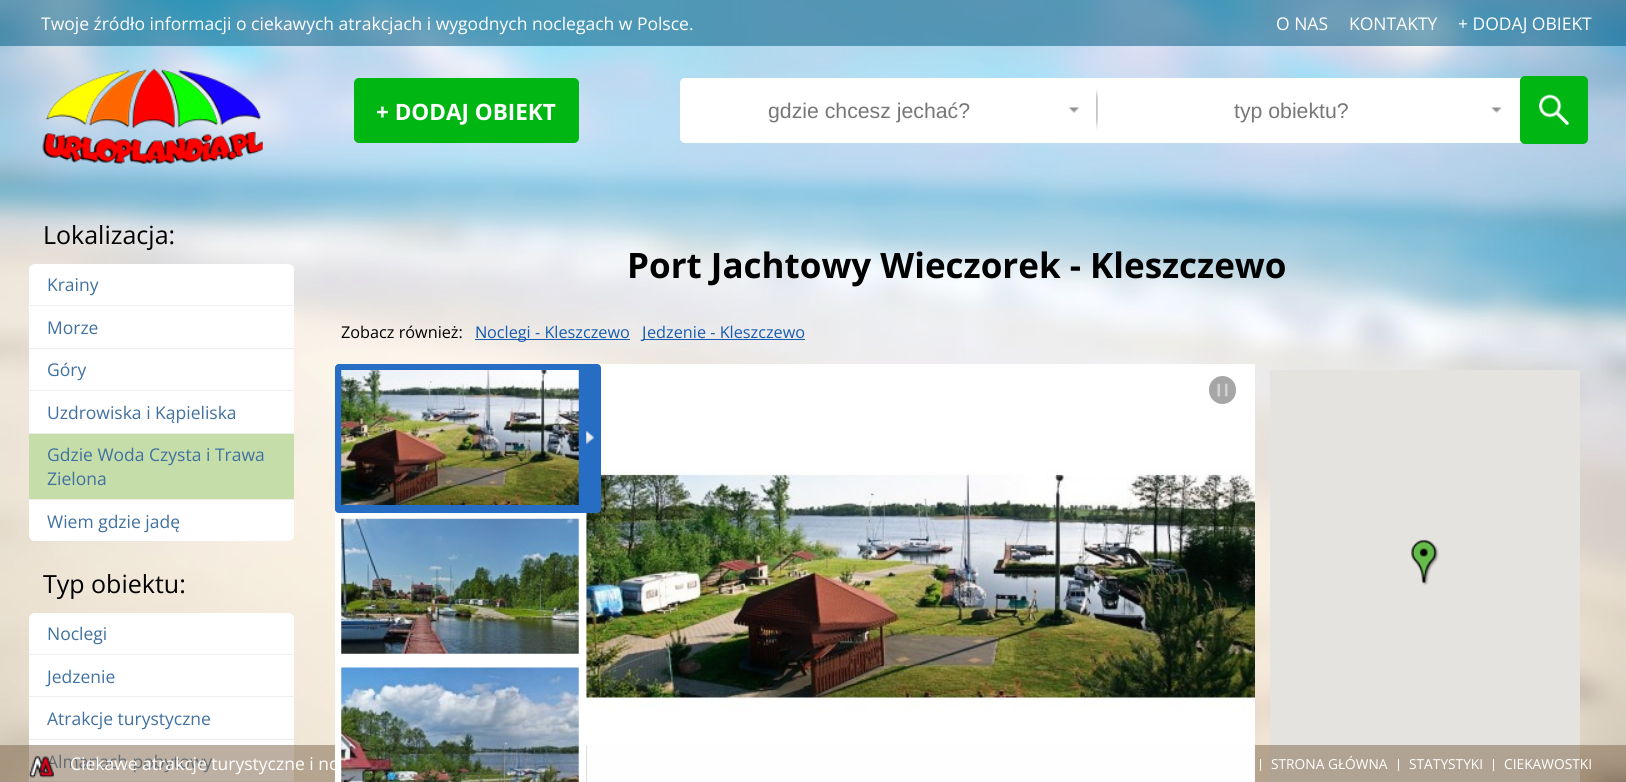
import math
import cairo


def round_path(ctx, x, y, w, h, r):
	ctx.new_sub_path()
	for i, (u, v) in enumerate([(x + w - r, y + h - r), (x + r, y + h - r), (x + r, y + r), (x + w - r, y + r)]):
		ctx.arc(u, v, r, i * math.pi / 2, (i + 1) * math.pi / 2)
	ctx.close_path()

def paste(ctx, path, x, y, w, h):
	ctx.save()
	ctx.set_source_surface(cairo.ImageSurface.create_from_png(path), x, y)
	ctx.rectangle(x, y, w, h)
	ctx.fill()
	ctx.restore()

def draw(ctx):
	ctx.set_source_rgb(1, 1, 1)
	ctx.paint()
	paste(ctx, 'media/1.png', 0, 0, 1626, 782)
	ctx.set_source_rgba(0, 0.357, 0.51, 0.53)
	ctx.rectangle(0, 0, 1626, 46)
	ctx.fill()
	ctx.select_font_face('Open Sans')
	ctx.set_font_size(17.5)
	ctx.set_source_rgb(1, 1, 1)
	for x, y, s in [
		(41, 30, 'Twoje źródło informacji o ciekawych atrakcjach i wygodnych noclegach w Polsce.'),
		(1276, 30, 'O NAS'),
		(1349, 30, 'KONTAKTY'),
		(1458, 30, '+ DODAJ OBIEKT'),
	]:
		ctx.move_to(x, y)
		ctx.show_text(s)
	paste(ctx, 'media/2.png', 42, 68, 221, 96)
	ctx.set_source_rgb(0, 0.714, 0.078)
	round_path(ctx, 354, 78, 225, 65, 5)
	ctx.fill()
	ctx.select_font_face('Open Sans', cairo.FONT_SLANT_NORMAL, cairo.FONT_WEIGHT_BOLD)
	ctx.set_font_size(22.5)
	ctx.set_source_rgb(1, 1, 1)
	ctx.move_to(376, 120)
	ctx.show_text('+ DODAJ OBIEKT')
	round_path(ctx, 680, 78, 906, 65, 5)
	ctx.fill()
	ctx.select_font_face('Liberation Sans')
	ctx.set_font_size(21.25)
	ctx.set_source_rgb(0.467, 0.467, 0.467)
	ctx.move_to(768, 118)
	ctx.show_text('gdzie chcesz jechać?')
	paste(ctx, 'media/3.png', 1068, 107, 11, 6)
	paste(ctx, 'media/4.png', 1096, 89, 2, 41)
	ctx.move_to(1234, 118)
	ctx.show_text('typ obiektu?')
	paste(ctx, 'media/5.png', 1491, 107, 11, 6)
	ctx.set_source_rgb(0, 0.714, 0.078)
	round_path(ctx, 1520, 76, 68, 68, 5)
	ctx.fill()
	paste(ctx, 'media/6.png', 1539, 94, 31, 32)
	ctx.select_font_face('Open Sans')
	ctx.set_font_size(25)
	ctx.set_source_rgb(0, 0, 0)
	ctx.move_to(43, 244)
	ctx.show_text('Lokalizacja:')
	ctx.set_source_rgb(1, 1, 1)
	ctx.new_path()
	ctx.move_to(35, 264)
	ctx.line_to(288, 264)
	ctx.curve_to(291.5, 264, 294, 266.5, 294, 270)
	ctx.line_to(294, 305)
	ctx.line_to(29, 305)
	ctx.line_to(29, 270)
	ctx.curve_to(29, 266.5, 31.5, 264, 35, 264)
	ctx.close_path()
	ctx.fill()
	ctx.set_font_size(17.5)
	ctx.set_source_rgb(0.251, 0.443, 0.627)
	ctx.move_to(47, 291)
	ctx.show_text('Krainy')
	ctx.set_source_rgb(1, 1, 1)
	ctx.rectangle(29, 306, 265, 42)
	ctx.fill()
	ctx.set_source_rgb(0.933, 0.933, 0.933)
	ctx.rectangle(29, 305, 265, 1)
	ctx.fill()
	ctx.set_source_rgb(0.251, 0.443, 0.627)
	ctx.move_to(47, 334)
	ctx.show_text('Morze')
	ctx.set_source_rgb(1, 1, 1)
	ctx.rectangle(29, 349, 265, 41)
	ctx.fill()
	ctx.set_source_rgb(0.933, 0.933, 0.933)
	ctx.rectangle(29, 348, 265, 1)
	ctx.fill()
	ctx.set_source_rgb(0.251, 0.443, 0.627)
	ctx.move_to(47, 376)
	ctx.show_text('Góry')
	ctx.set_source_rgb(1, 1, 1)
	ctx.rectangle(29, 391, 265, 42)
	ctx.fill()
	ctx.set_source_rgb(0.933, 0.933, 0.933)
	ctx.rectangle(29, 390, 265, 1)
	ctx.fill()
	ctx.set_source_rgb(0.251, 0.443, 0.627)
	ctx.move_to(47, 419)
	ctx.show_text('Uzdrowiska i Kąpieliska')
	ctx.set_source_rgb(0.933, 0.933, 0.933)
	ctx.rectangle(29, 433, 265, 1)
	ctx.fill()
	ctx.set_source_rgb(0.773, 0.867, 0.663)
	ctx.rectangle(29, 434, 265, 65)
	ctx.fill()
	ctx.set_source_rgb(0.251, 0.443, 0.627)
	ctx.move_to(47, 461)
	ctx.show_text('Gdzie Woda Czysta i Trawa')
	ctx.move_to(47, 485)
	ctx.show_text('Zielona')
	ctx.set_source_rgb(1, 1, 1)
	ctx.new_path()
	ctx.move_to(29, 499)
	ctx.line_to(294, 499)
	ctx.line_to(294, 535)
	ctx.curve_to(294, 538.5, 291.5, 541, 288, 541)
	ctx.line_to(35, 541)
	ctx.curve_to(31.5, 541, 29, 538.5, 29, 535)
	ctx.close_path()
	ctx.fill()
	ctx.set_source_rgb(0.933, 0.933, 0.933)
	ctx.rectangle(29, 499, 265, 1)
	ctx.fill()
	ctx.set_source_rgb(0.251, 0.443, 0.627)
	ctx.move_to(47, 528)
	ctx.show_text('Wiem gdzie jadę')
	ctx.set_font_size(25)
	ctx.set_source_rgb(0, 0, 0)
	ctx.move_to(43, 593)
	ctx.show_text('Typ obiektu:')
	ctx.set_source_rgb(1, 1, 1)
	ctx.new_path()
	ctx.move_to(35, 613)
	ctx.line_to(288, 613)
	ctx.curve_to(291.5, 613, 294, 615.5, 294, 619)
	ctx.line_to(294, 654)
	ctx.line_to(29, 654)
	ctx.line_to(29, 619)
	ctx.curve_to(29, 615.5, 31.5, 613, 35, 613)
	ctx.close_path()
	ctx.fill()
	ctx.set_font_size(17.5)
	ctx.set_source_rgb(0.251, 0.443, 0.627)
	ctx.move_to(47, 640)
	ctx.show_text('Noclegi')
	ctx.set_source_rgb(1, 1, 1)
	ctx.rectangle(29, 655, 265, 41)
	ctx.fill()
	ctx.set_source_rgb(0.933, 0.933, 0.933)
	ctx.rectangle(29, 654, 265, 1)
	ctx.fill()
	ctx.set_source_rgb(0.251, 0.443, 0.627)
	ctx.move_to(47, 683)
	ctx.show_text('Jedzenie')
	ctx.set_source_rgb(1, 1, 1)
	ctx.rectangle(29, 697, 265, 42)
	ctx.fill()
	ctx.set_source_rgb(0.933, 0.933, 0.933)
	ctx.rectangle(29, 696, 265, 1)
	ctx.fill()
	ctx.set_source_rgb(0.251, 0.443, 0.627)
	ctx.move_to(47, 725)
	ctx.show_text('Atrakcje turystyczne')
	ctx.set_source_rgb(1, 1, 1)
	ctx.rectangle(29, 740, 265, 41)
	ctx.fill()
	ctx.set_source_rgb(0.933, 0.933, 0.933)
	ctx.rectangle(29, 739, 265, 1)
	ctx.fill()
	ctx.set_source_rgb(0.251, 0.443, 0.627)
	ctx.move_to(47, 768)
	ctx.show_text('Almanach pobytowy')
	ctx.set_source_rgb(0.933, 0.933, 0.933)
	ctx.rectangle(29, 781, 265, 1)
	ctx.fill()
	ctx.select_font_face('Open Sans', cairo.FONT_SLANT_NORMAL, cairo.FONT_WEIGHT_BOLD)
	ctx.set_font_size(35)
	ctx.set_source_rgb(0, 0, 0)
	ctx.move_to(627, 278)
	ctx.show_text('Port Jachtowy Wieczorek - Kleszczewo')
	ctx.select_font_face('Open Sans')
	ctx.set_font_size(16.25)
	ctx.move_to(341, 338)
	ctx.show_text('Zobacz również:')
	ctx.select_font_face('Noto Sans')
	ctx.set_source_rgb(0.09, 0.361, 0.69)
	ctx.move_to(475, 338)
	ctx.show_text('N')
	ctx.rectangle(475, 339, 155, 1)
	ctx.fill()
	ctx.select_font_face('Open Sans')
	ctx.move_to(487, 338)
	ctx.show_text('oclegi - Kleszczewo')
	ctx.rectangle(643, 339, 162, 1)
	ctx.fill()
	ctx.select_font_face('Noto Sans')
	ctx.move_to(642, 338)
	ctx.show_text('J')
	ctx.select_font_face('Open Sans')
	ctx.move_to(647, 338)
	ctx.show_text('edzenie - Kleszczewo')
	ctx.set_source_rgb(1, 1, 1)
	ctx.rectangle(335, 364, 920, 418)
	ctx.fill()
	ctx.set_source_rgb(0.898, 0.89, 0.875)
	ctx.rectangle(1270, 370, 310, 412)
	ctx.fill()
	ctx.set_source_rgba(0.514, 0.42, 0.31, 0.53)
	ctx.rectangle(0, 745, 1626, 37)
	ctx.fill()
	paste(ctx, 'media/14.png', 586, 470, 669, 312)
	ctx.set_source_rgb(0.153, 0.427, 0.765)
	round_path(ctx, 335, 364, 266, 149, 4)
	ctx.fill()
	round_path(ctx, 335, 364, 251, 149, 5)
	ctx.fill()
	paste(ctx, 'media/7.png', 341, 370, 238, 135)
	paste(ctx, 'media/8.png', 586, 431, 8, 13)
	paste(ctx, 'media/9.png', 432, 583, 56, 7)
	paste(ctx, 'media/10.png', 341, 518, 238, 136)
	ctx.set_source_rgb(1, 1, 1)
	ctx.rectangle(335, 745, 251, 37)
	ctx.fill()
	paste(ctx, 'media/11.png', 432, 732, 56, 7)
	paste(ctx, 'media/12.png', 341, 667, 238, 115)
	ctx.set_source_rgb(0.651, 0.651, 0.651)
	round_path(ctx, 1209, 376, 27, 28, 13.5)
	ctx.fill()
	paste(ctx, 'media/13.png', 1217, 383, 11, 14)
	paste(ctx, 'media/15.png', 1411, 539, 28, 46)
	paste(ctx, 'media/16.png', 29, 756, 26, 22)
	ctx.set_font_size(17.5)
	ctx.set_source_rgb(1, 1, 1)
	ctx.move_to(70, 770)
	ctx.show_text('Ciekawe atrakcje turystyczne i no')
	ctx.rectangle(1260, 759, 1, 12)
	ctx.fill()
	ctx.set_font_size(13.75)
	ctx.move_to(1271, 769)
	ctx.show_text('STRONA GŁÓWNA')
	ctx.rectangle(1398, 759, 1, 12)
	ctx.fill()
	ctx.move_to(1409, 769)
	ctx.show_text('STATYSTYKI')
	ctx.rectangle(1493, 759, 1, 12)
	ctx.fill()
	ctx.move_to(1504, 769)
	ctx.show_text('CIEKAWOSTKI')


surface = cairo.ImageSurface(cairo.FORMAT_RGB24, 1626, 782)
ctx = cairo.Context(surface)
options = cairo.FontOptions()
options.set_hint_metrics(cairo.HINT_METRICS_OFF)
options.set_hint_style(cairo.HINT_STYLE_NONE)
ctx.set_font_options(options)
ctx.set_miter_limit(4)
draw(ctx)
surface.write_to_png('image.png')
